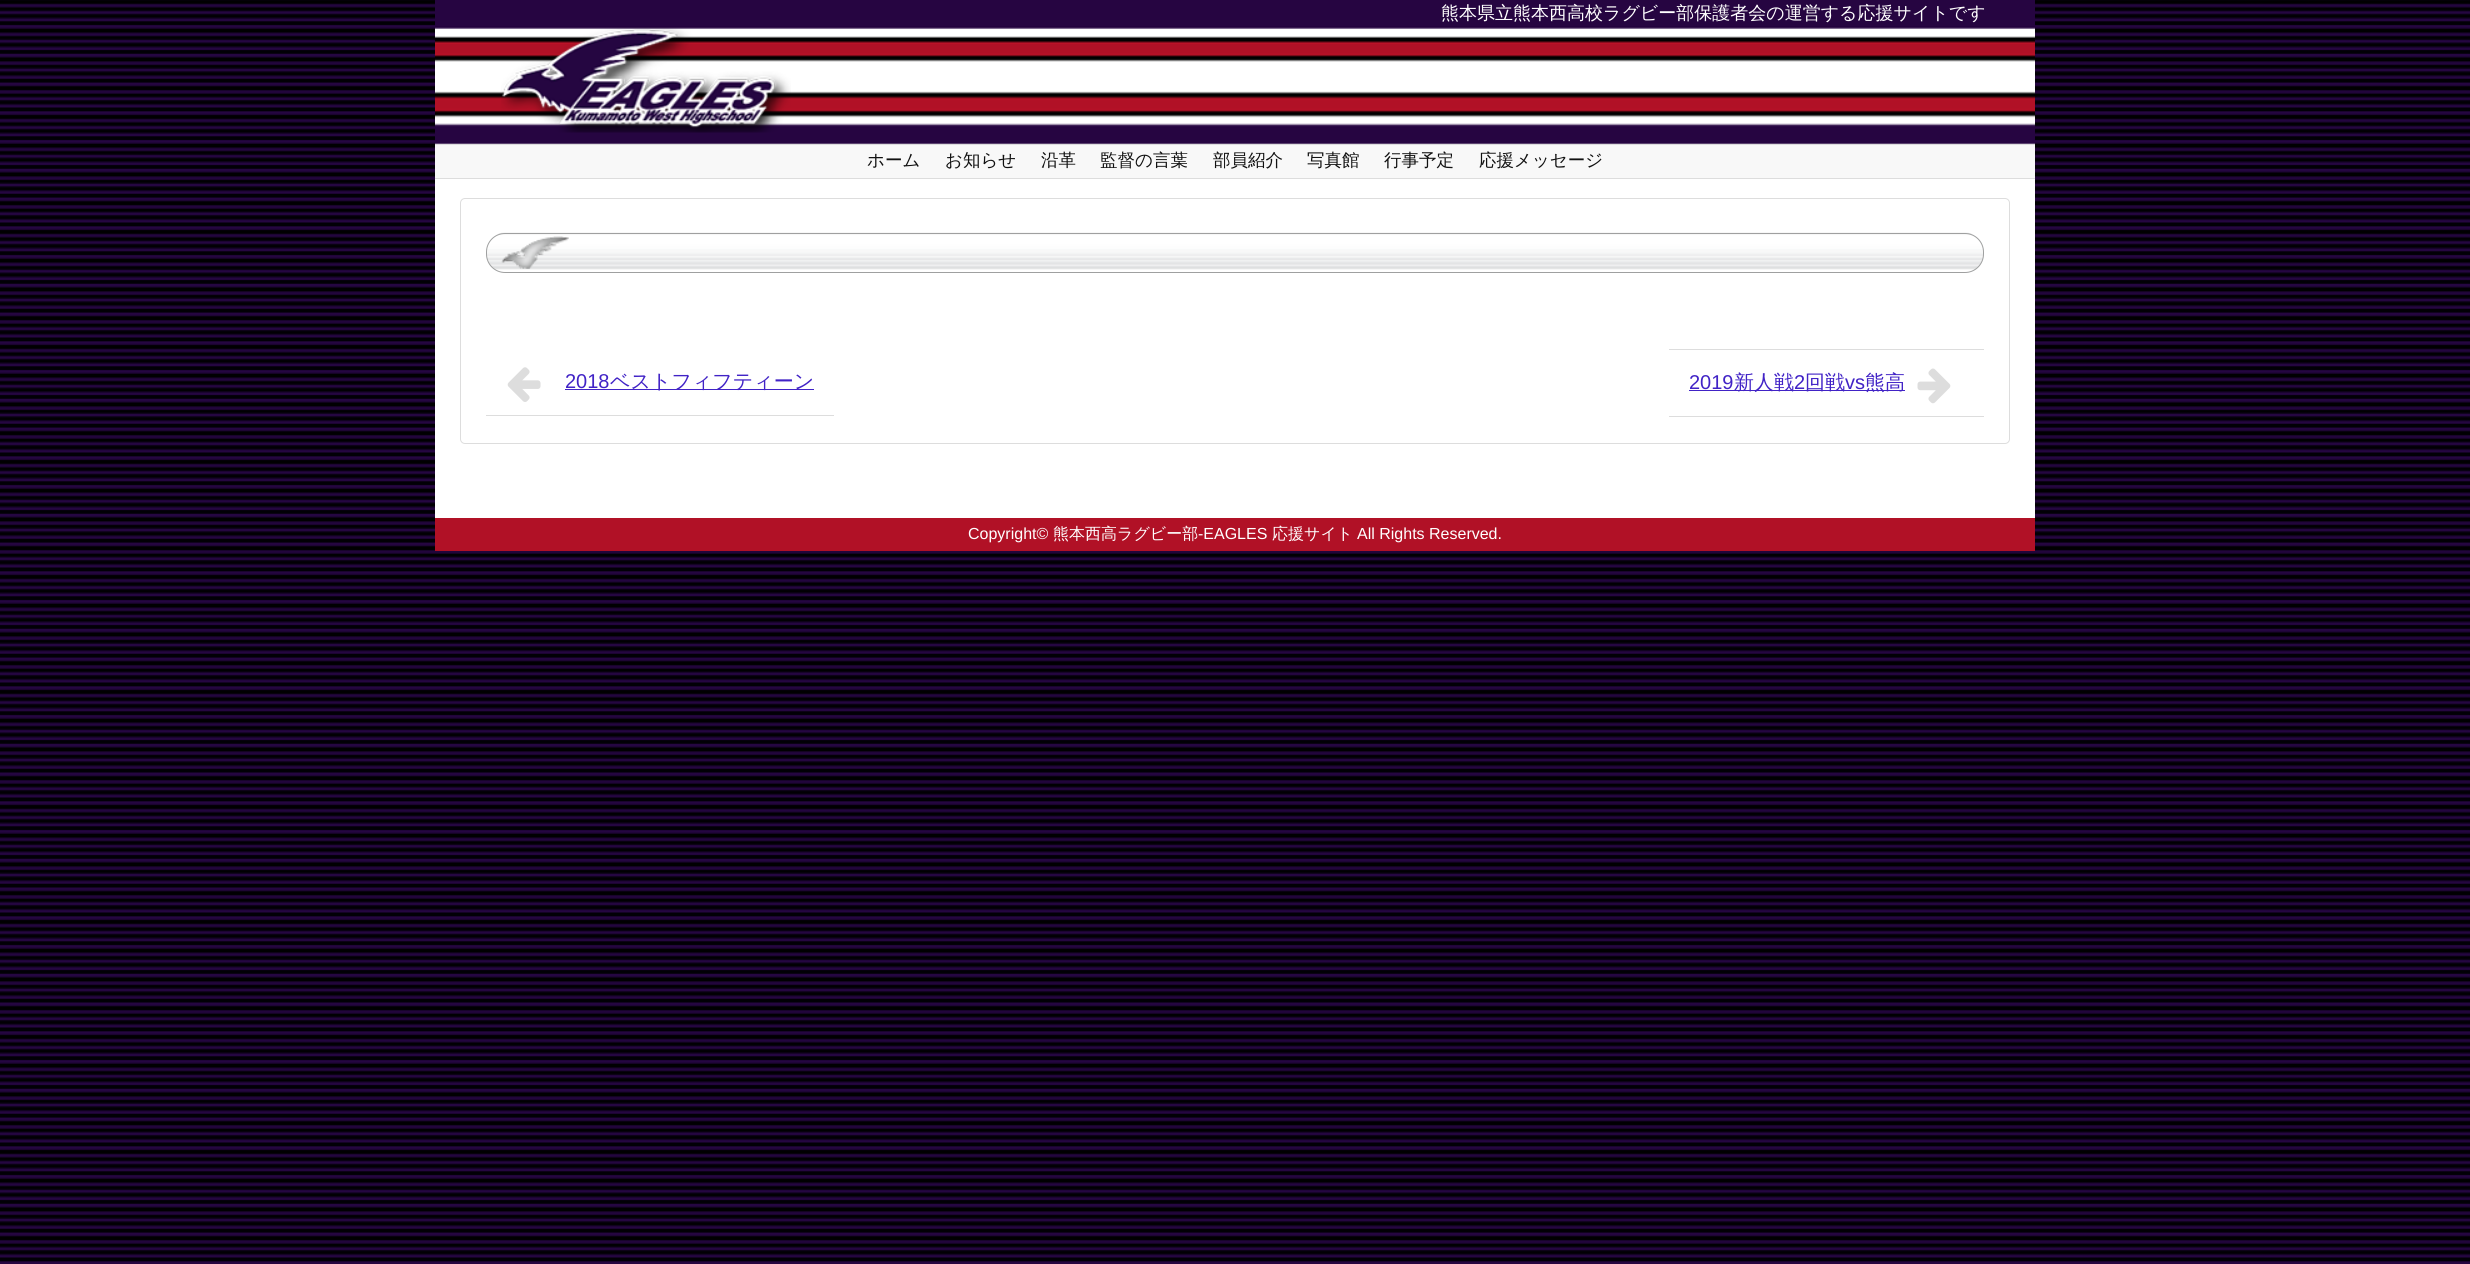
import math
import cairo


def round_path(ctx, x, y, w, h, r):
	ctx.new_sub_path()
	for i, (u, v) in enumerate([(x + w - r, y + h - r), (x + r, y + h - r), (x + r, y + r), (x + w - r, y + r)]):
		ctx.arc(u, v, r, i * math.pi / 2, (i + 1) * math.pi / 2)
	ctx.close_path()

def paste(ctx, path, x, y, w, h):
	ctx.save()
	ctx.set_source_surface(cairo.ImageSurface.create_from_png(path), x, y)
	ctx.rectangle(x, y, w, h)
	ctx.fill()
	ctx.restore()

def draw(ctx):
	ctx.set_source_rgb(0.149, 0.024, 0.255)
	ctx.paint()
	paste(ctx, 'media/1.png', 0, 0, 2470, 1262)
	ctx.set_source_rgb(1, 1, 1)
	ctx.rectangle(435, 143, 1600, 375)
	ctx.fill()
	paste(ctx, 'media/2.png', 435, 0, 1600, 144)
	ctx.select_font_face('WenQuanYi Zen Hei Medium')
	ctx.set_font_size(18)
	ctx.move_to(1441, 19)
	ctx.show_text('熊本県立熊本西高校ラグビー部保護者会の運営する応援サイトです')
	paste(ctx, 'media/3.png', 501, 27, 290, 106)
	ctx.set_source_rgb(0.969, 0.969, 0.969)
	ctx.rectangle(435, 145, 1600, 33)
	ctx.fill()
	ctx.set_source_rgb(0.867, 0.867, 0.867)
	ctx.rectangle(435, 144, 1600, 1)
	ctx.rectangle(435, 178, 1600, 1)
	ctx.fill()
	ctx.set_font_size(17.5)
	ctx.set_source_rgb(0.067, 0.067, 0.067)
	for x, y, s in [
		(867, 166, 'ホーム'),
		(945, 166, 'お知らせ'),
		(1041, 166, '沿革'),
		(1100, 166, '監督の言葉'),
		(1213, 166, '部員紹介'),
		(1307, 166, '写真館'),
		(1384, 166, '行事予定'),
		(1479, 166, '応援メッセージ'),
	]:
		ctx.move_to(x, y)
		ctx.show_text(s)
	round_path(ctx, 460.5, 198.5, 1549, 245, 4.5)
	ctx.set_source_rgb(0.867, 0.867, 0.867)
	ctx.set_line_width(1)
	ctx.stroke()
	paste(ctx, 'media/4.png', 486, 232, 1498, 38)
	round_path(ctx, 486.5, 233.5, 1497, 39, 18.5)
	ctx.set_source_rgb(0.624, 0.627, 0.627)
	ctx.stroke()
	paste(ctx, 'media/5.png', 501, 236, 68, 33)
	ctx.set_source_rgb(0.867, 0.867, 0.867)
	ctx.rectangle(486, 415, 348, 1)
	ctx.fill()
	paste(ctx, 'media/6.png', 507, 367, 34, 35)
	ctx.select_font_face('Liberation Sans')
	ctx.set_font_size(20)
	ctx.set_source_rgb(0.255, 0.137, 0.776)
	ctx.move_to(565, 388)
	ctx.show_text('2018')
	ctx.rectangle(565, 389, 249, 1)
	ctx.fill()
	ctx.select_font_face('WenQuanYi Zen Hei Medium')
	ctx.move_to(610, 388)
	ctx.show_text('ベストフィフティーン')
	ctx.set_source_rgb(0.867, 0.867, 0.867)
	ctx.rectangle(1669, 349, 315, 1)
	ctx.fill()
	ctx.rectangle(1669, 416, 315, 1)
	ctx.fill()
	ctx.select_font_face('Liberation Sans')
	ctx.set_source_rgb(0.255, 0.137, 0.776)
	ctx.move_to(1689, 389)
	ctx.show_text('2019')
	ctx.rectangle(1689, 390, 216, 1)
	ctx.fill()
	ctx.select_font_face('WenQuanYi Zen Hei Medium')
	ctx.move_to(1734, 389)
	ctx.show_text('新人戦')
	ctx.select_font_face('Liberation Sans')
	ctx.move_to(1794, 389)
	ctx.show_text('2')
	ctx.select_font_face('WenQuanYi Zen Hei Medium')
	ctx.move_to(1805, 389)
	ctx.show_text('回戦')
	ctx.select_font_face('Liberation Sans')
	ctx.move_to(1845, 389)
	ctx.show_text('vs')
	ctx.select_font_face('WenQuanYi Zen Hei Medium')
	ctx.move_to(1865, 389)
	ctx.show_text('熊高')
	paste(ctx, 'media/7.png', 1917, 368, 34, 36)
	ctx.set_source_rgb(0.694, 0.067, 0.149)
	ctx.rectangle(435, 518, 1600, 33)
	ctx.fill()
	ctx.select_font_face('Liberation Sans')
	ctx.set_font_size(16)
	ctx.set_source_rgb(1, 1, 1)
	ctx.move_to(968, 539)
	ctx.show_text('Copyright©')
	ctx.select_font_face('WenQuanYi Zen Hei Medium')
	ctx.move_to(1053, 539)
	ctx.show_text('熊本西高ラグビー部')
	ctx.select_font_face('Liberation Sans')
	ctx.move_to(1198, 539)
	ctx.show_text('-EAGLES')
	ctx.select_font_face('WenQuanYi Zen Hei Medium')
	ctx.move_to(1272, 539)
	ctx.show_text('応援サイト')
	ctx.select_font_face('Liberation Sans')
	ctx.move_to(1357, 539)
	ctx.show_text('All Rights Reserved.')


surface = cairo.ImageSurface(cairo.FORMAT_RGB24, 2470, 1264)
ctx = cairo.Context(surface)
options = cairo.FontOptions()
options.set_hint_metrics(cairo.HINT_METRICS_OFF)
options.set_hint_style(cairo.HINT_STYLE_NONE)
ctx.set_font_options(options)
ctx.set_miter_limit(4)
draw(ctx)
surface.write_to_png('image.png')
